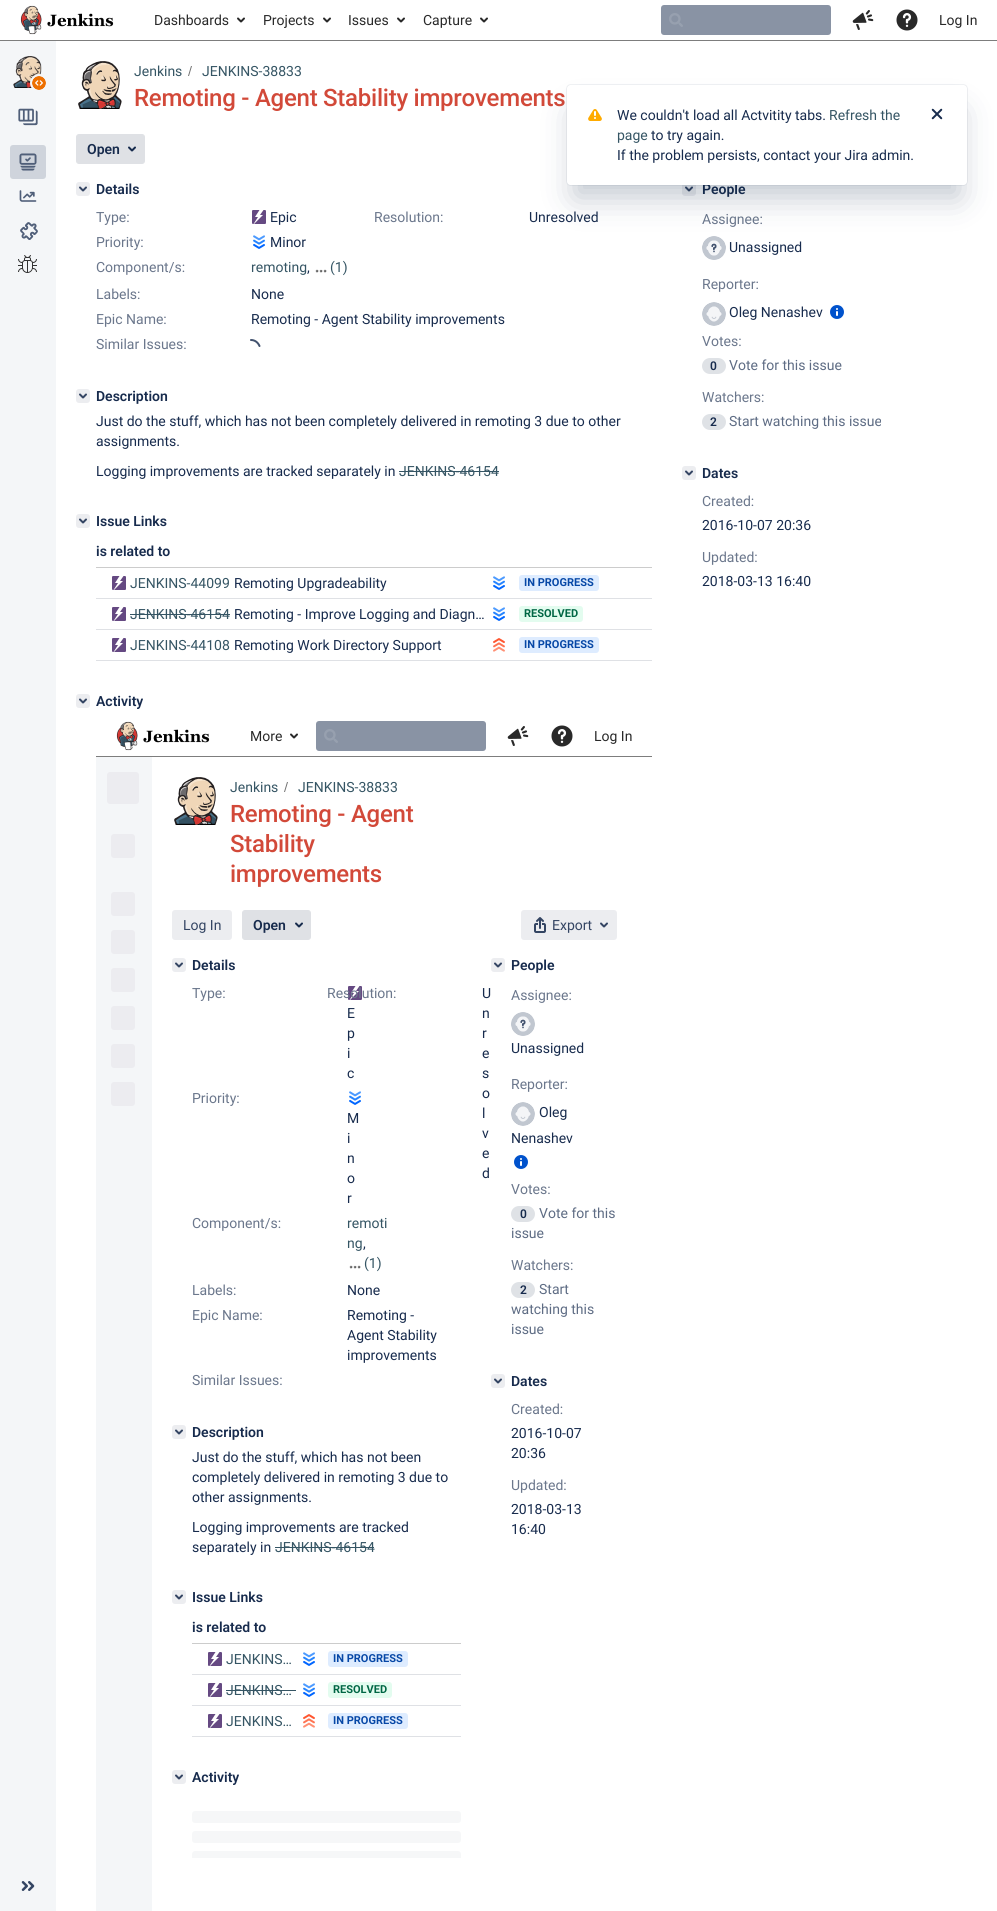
import math
import cairo


def write_spaced(ctx, x, y, s, letter, word):
	ctx.move_to(x, y)
	for ch in s:
		ctx.show_text(ch)
		ctx.rel_move_to(letter + word * (ch == ' '), 0)

def round_path(ctx, x, y, w, h, r):
	ctx.new_sub_path()
	for i, (u, v) in enumerate([(x + w - r, y + h - r), (x + r, y + h - r), (x + r, y + r), (x + w - r, y + r)]):
		ctx.arc(u, v, r, i * math.pi / 2, (i + 1) * math.pi / 2)
	ctx.close_path()

def blur_box(ctx, x, y, w, h, r, blur, alpha):
	ctx.push_group_with_content(cairo.CONTENT_ALPHA)
	ctx.set_operator(cairo.OPERATOR_SOURCE)
	for i in range(15, -16, -2):
		e = blur * i / 6
		if min(w, h) + 2 * e > 0:
			ctx.set_source_rgba(0, 0, 0, alpha * math.erfc((i - 1) / 8.5) / 2)
			round_path(ctx, x - e, y - e, w + 2 * e, h + 2 * e, max(0, min(r + e + blur * .6, min(w, h) / 2 + e)))
			ctx.fill()
	ctx.mask(ctx.pop_group())

def paste(ctx, path, x, y, w, h):
	ctx.save()
	ctx.set_source_surface(cairo.ImageSurface.create_from_png(path), x, y)
	ctx.rectangle(x, y, w, h)
	ctx.fill()
	ctx.restore()

def draw(ctx):
	ctx.set_source_rgb(1, 1, 1)
	ctx.paint()
	ctx.set_source_rgb(0.49, 0.49, 0.49)
	ctx.rectangle(0, 40, 997, 1)
	ctx.fill()
	paste(ctx, 'media/1.png', 20, 5, 94, 30)
	ctx.select_font_face('Roboto')
	ctx.set_font_size(14)
	ctx.set_source_rgb(0.161, 0.161, 0.161)
	ctx.move_to(154, 25)
	ctx.show_text('Dashboards')
	paste(ctx, 'media/2.png', 237, 17, 8, 6)
	ctx.move_to(263, 25)
	ctx.show_text('Projects')
	paste(ctx, 'media/2.png', 323, 17, 8, 6)
	ctx.move_to(348, 25)
	ctx.show_text('Issues')
	paste(ctx, 'media/2.png', 397, 17, 8, 6)
	ctx.move_to(423, 25)
	ctx.show_text('Capture')
	paste(ctx, 'media/2.png', 480, 17, 8, 6)
	ctx.set_source_rgb(0.537, 0.576, 0.643)
	round_path(ctx, 661, 5, 170, 30, 3)
	ctx.fill()
	paste(ctx, 'media/3.png', 669, 13, 14, 14)
	paste(ctx, 'media/4.png', 852, 10, 22, 20)
	paste(ctx, 'media/5.png', 896, 9, 22, 22)
	ctx.set_source_rgb(0.161, 0.161, 0.161)
	ctx.move_to(939, 25)
	ctx.show_text('Log In')
	ctx.set_source_rgb(0.957, 0.961, 0.969)
	ctx.rectangle(0, 41, 56, 1870)
	ctx.fill()
	paste(ctx, 'media/6.png', 13, 56, 29, 32)
	ctx.arc(39, 83, 9, 0, 2 * math.pi)
	ctx.fill()
	paste(ctx, 'media/7.png', 32, 76, 14, 14)
	paste(ctx, 'media/8.png', 18, 108, 20, 18)
	ctx.set_source_rgb(0.882, 0.894, 0.914)
	round_path(ctx, 10, 145, 36, 34, 3)
	ctx.fill()
	ctx.set_source_rgba(0.035, 0.118, 0.259, 0.08)
	round_path(ctx, 10, 145, 36, 34, 3)
	ctx.fill()
	paste(ctx, 'media/9.png', 19, 153, 18, 18)
	paste(ctx, 'media/10.png', 19, 190, 18, 12)
	paste(ctx, 'media/11.png', 20, 222, 18, 18)
	paste(ctx, 'media/12.png', 18, 255, 19, 18)
	paste(ctx, 'media/13.png', 21, 1881, 14, 10)
	paste(ctx, 'media/14.png', 78, 61, 44, 48)
	ctx.set_source_rgb(0.208, 0.333, 0.392)
	ctx.move_to(134, 76)
	ctx.show_text('Jenkins')
	ctx.set_source_rgb(0.439, 0.439, 0.439)
	ctx.new_path()
	ctx.move_to(189, 76)
	ctx.line_to(192, 66)
	ctx.line_to(191, 66)
	ctx.line_to(188, 76)
	ctx.close_path()
	ctx.fill()
	ctx.set_source_rgb(0.208, 0.333, 0.392)
	ctx.move_to(202, 76)
	ctx.show_text('JENKINS-38833')
	ctx.select_font_face('Roboto Medium')
	ctx.set_font_size(24)
	ctx.set_source_rgb(0.824, 0.286, 0.224)
	write_spaced(ctx, 134, 106, 'Remoting - Agent Stability improvements', -0.25, 0)
	ctx.set_source_rgb(0.875, 0.882, 0.898)
	round_path(ctx, 76.5, 134.5, 68, 29, 2.5)
	ctx.fill_preserve()
	ctx.set_line_width(1)
	ctx.stroke()
	ctx.select_font_face('Roboto SemiBold')
	ctx.set_font_size(14)
	ctx.set_source_rgb(0.09, 0.169, 0.302)
	ctx.move_to(87, 154)
	ctx.show_text('Open')
	paste(ctx, 'media/15.png', 128, 146, 8, 6)
	ctx.set_source_rgb(0.922, 0.929, 0.941)
	round_path(ctx, 76, 182, 14, 14, 3)
	ctx.fill()
	paste(ctx, 'media/16.png', 79, 186, 8, 6)
	ctx.set_source_rgb(0.09, 0.169, 0.302)
	ctx.move_to(96, 194)
	ctx.show_text('Details')
	ctx.select_font_face('Roboto')
	ctx.set_source_rgb(0.42, 0.467, 0.549)
	ctx.move_to(96, 222)
	ctx.show_text('Type:')
	paste(ctx, 'media/17.png', 252, 210, 14, 14)
	ctx.set_source_rgb(0.09, 0.169, 0.302)
	ctx.move_to(270, 222)
	ctx.show_text('Epic')
	ctx.set_source_rgb(0.42, 0.467, 0.549)
	ctx.move_to(374, 222)
	ctx.show_text('Resolution:')
	ctx.set_source_rgb(0.09, 0.169, 0.302)
	ctx.move_to(529, 222)
	ctx.show_text('Unresolved')
	ctx.set_source_rgb(0.42, 0.467, 0.549)
	ctx.move_to(96, 247)
	ctx.show_text('Priority:')
	paste(ctx, 'media/18.png', 253, 235, 12, 14)
	ctx.set_source_rgb(0.09, 0.169, 0.302)
	ctx.move_to(270, 247)
	ctx.show_text('Minor')
	ctx.set_source_rgb(0.42, 0.467, 0.549)
	ctx.move_to(96, 272)
	ctx.show_text('Component/s:')
	ctx.set_source_rgb(0.208, 0.333, 0.392)
	ctx.move_to(251, 272)
	ctx.show_text('remoting')
	ctx.set_source_rgb(0.09, 0.169, 0.302)
	ctx.move_to(307, 272)
	ctx.show_text(',')
	paste(ctx, 'media/19.png', 315, 269, 12, 4)
	ctx.set_source_rgb(0.208, 0.333, 0.392)
	ctx.move_to(330, 272)
	ctx.show_text('(1)')
	ctx.set_source_rgb(0.42, 0.467, 0.549)
	ctx.move_to(96, 299)
	ctx.show_text('Labels:')
	ctx.set_source_rgb(0.09, 0.169, 0.302)
	ctx.move_to(251, 299)
	ctx.show_text('None')
	ctx.set_source_rgb(0.42, 0.467, 0.549)
	ctx.move_to(96, 324)
	ctx.show_text('Epic Name:')
	ctx.set_source_rgb(0.09, 0.169, 0.302)
	ctx.move_to(251, 324)
	ctx.show_text('Remoting - Agent Stability improvements')
	ctx.set_source_rgb(0.42, 0.467, 0.549)
	ctx.move_to(96, 349)
	ctx.show_text('Similar Issues:')
	ctx.new_path()
	ctx.move_to(251, 340)
	ctx.curve_to(255, 340, 258, 342.5, 259.5, 346)
	ctx.set_source_rgb(0.259, 0.322, 0.431)
	ctx.set_line_width(2)
	ctx.set_line_cap(cairo.LINE_CAP_ROUND)
	ctx.stroke()
	ctx.set_source_rgb(0.922, 0.929, 0.941)
	round_path(ctx, 76, 389, 14, 14, 3)
	ctx.fill()
	paste(ctx, 'media/16.png', 79, 393, 8, 6)
	ctx.select_font_face('Roboto SemiBold')
	ctx.set_source_rgb(0.09, 0.169, 0.302)
	ctx.move_to(96, 401)
	ctx.show_text('Description')
	ctx.select_font_face('Roboto')
	for x, y, s in [
		(96, 426, 'Just do the stuff, which has not been completely delivered in remoting 3 due to other'),
		(96, 446, 'assignments.'),
		(96, 476, 'Logging improvements are tracked separately in'),
	]:
		ctx.move_to(x, y)
		ctx.show_text(s)
	ctx.set_source_rgb(0.208, 0.333, 0.392)
	ctx.move_to(399, 476)
	ctx.show_text('JENKINS-46154')
	ctx.rectangle(399, 471, 100, 1)
	ctx.fill()
	ctx.set_source_rgb(0.922, 0.929, 0.941)
	round_path(ctx, 76, 514, 14, 14, 3)
	ctx.fill()
	paste(ctx, 'media/16.png', 79, 518, 8, 6)
	ctx.select_font_face('Roboto SemiBold')
	ctx.set_source_rgb(0.09, 0.169, 0.302)
	ctx.move_to(96, 526)
	ctx.show_text('Issue Links')
	ctx.move_to(96, 556)
	ctx.show_text('is related to')
	ctx.set_source_rgb(0.8, 0.8, 0.8)
	ctx.rectangle(96, 567, 556, 1)
	ctx.fill()
	ctx.set_source_rgb(0.875, 0.882, 0.898)
	ctx.rectangle(96, 598, 556, 1)
	ctx.fill()
	paste(ctx, 'media/17.png', 112, 576, 14, 14)
	ctx.select_font_face('Roboto')
	ctx.set_source_rgb(0.208, 0.333, 0.392)
	ctx.move_to(130, 588)
	ctx.show_text('JENKINS-44099')
	ctx.set_source_rgb(0.09, 0.169, 0.302)
	ctx.move_to(234, 588)
	ctx.show_text('Remoting Upgradeability')
	paste(ctx, 'media/18.png', 493, 576, 12, 14)
	ctx.set_source_rgb(0.871, 0.922, 1)
	round_path(ctx, 519, 575, 80, 16, 3)
	ctx.fill()
	ctx.select_font_face('Roboto', cairo.FONT_SLANT_NORMAL, cairo.FONT_WEIGHT_BOLD)
	ctx.set_font_size(11)
	ctx.set_source_rgb(0.027, 0.278, 0.651)
	ctx.move_to(524, 586)
	ctx.show_text('IN PROGRESS')
	ctx.set_source_rgb(0.875, 0.882, 0.898)
	ctx.rectangle(96, 629, 556, 1)
	ctx.fill()
	paste(ctx, 'media/17.png', 112, 607, 14, 14)
	ctx.select_font_face('Roboto')
	ctx.set_font_size(14)
	ctx.set_source_rgb(0.208, 0.333, 0.392)
	ctx.move_to(130, 619)
	ctx.show_text('JENKINS-46154')
	ctx.rectangle(130, 614, 100, 1)
	ctx.fill()
	ctx.set_source_rgb(0.09, 0.169, 0.302)
	ctx.move_to(234, 619)
	ctx.show_text('Remoting - Improve Logging and Diagn…')
	paste(ctx, 'media/18.png', 493, 607, 12, 14)
	ctx.set_source_rgb(0.89, 0.988, 0.937)
	round_path(ctx, 519, 606, 64, 16, 3)
	ctx.fill()
	ctx.select_font_face('Roboto', cairo.FONT_SLANT_NORMAL, cairo.FONT_WEIGHT_BOLD)
	ctx.set_font_size(11)
	ctx.set_source_rgb(0, 0.4, 0.267)
	ctx.move_to(524, 617)
	ctx.show_text('RESOLVED')
	ctx.set_source_rgb(0.875, 0.882, 0.898)
	ctx.rectangle(96, 660, 556, 1)
	ctx.fill()
	paste(ctx, 'media/17.png', 112, 638, 14, 14)
	ctx.select_font_face('Roboto')
	ctx.set_font_size(14)
	ctx.set_source_rgb(0.208, 0.333, 0.392)
	ctx.move_to(130, 650)
	ctx.show_text('JENKINS-44108')
	ctx.set_source_rgb(0.09, 0.169, 0.302)
	ctx.move_to(234, 650)
	ctx.show_text('Remoting Work Directory Support')
	paste(ctx, 'media/20.png', 493, 638, 12, 14)
	ctx.set_source_rgb(0.871, 0.922, 1)
	round_path(ctx, 519, 637, 80, 16, 3)
	ctx.fill()
	ctx.select_font_face('Roboto', cairo.FONT_SLANT_NORMAL, cairo.FONT_WEIGHT_BOLD)
	ctx.set_font_size(11)
	ctx.set_source_rgb(0.027, 0.278, 0.651)
	ctx.move_to(524, 648)
	ctx.show_text('IN PROGRESS')
	ctx.set_source_rgb(0.922, 0.929, 0.941)
	round_path(ctx, 76, 694, 14, 14, 3)
	ctx.fill()
	paste(ctx, 'media/16.png', 79, 698, 8, 6)
	ctx.select_font_face('Roboto SemiBold')
	ctx.set_font_size(14)
	ctx.set_source_rgb(0.09, 0.169, 0.302)
	ctx.move_to(96, 706)
	ctx.show_text('Activity')
	ctx.set_source_rgb(0.49, 0.49, 0.49)
	ctx.rectangle(96, 756, 556, 1)
	ctx.fill()
	paste(ctx, 'media/1.png', 116, 721, 94, 30)
	ctx.select_font_face('Roboto')
	ctx.set_source_rgb(0.161, 0.161, 0.161)
	ctx.move_to(250, 741)
	ctx.show_text('More')
	paste(ctx, 'media/2.png', 290, 733, 8, 6)
	ctx.set_source_rgb(0.537, 0.576, 0.643)
	round_path(ctx, 316, 721, 170, 30, 3)
	ctx.fill()
	paste(ctx, 'media/3.png', 324, 729, 14, 14)
	paste(ctx, 'media/4.png', 507, 726, 22, 20)
	paste(ctx, 'media/5.png', 551, 725, 22, 22)
	ctx.set_source_rgb(0.161, 0.161, 0.161)
	ctx.move_to(594, 741)
	ctx.show_text('Log In')
	ctx.set_source_rgb(0.957, 0.961, 0.969)
	ctx.rectangle(96, 757, 56, 1154)
	ctx.fill()
	ctx.set_source_rgb(0.922, 0.925, 0.941)
	round_path(ctx, 107, 772, 32, 32, 3)
	ctx.fill()
	round_path(ctx, 111, 834, 24, 24, 3)
	ctx.fill()
	round_path(ctx, 111, 892, 24, 24, 3)
	ctx.fill()
	round_path(ctx, 111, 930, 24, 24, 3)
	ctx.fill()
	round_path(ctx, 111, 968, 24, 24, 3)
	ctx.fill()
	round_path(ctx, 111, 1006, 24, 24, 3)
	ctx.fill()
	round_path(ctx, 111, 1044, 24, 24, 3)
	ctx.fill()
	round_path(ctx, 111, 1082, 24, 24, 3)
	ctx.fill()
	paste(ctx, 'media/14.png', 174, 777, 44, 48)
	ctx.set_source_rgb(0.208, 0.333, 0.392)
	ctx.move_to(230, 792)
	ctx.show_text('Jenkins')
	ctx.set_source_rgb(0.439, 0.439, 0.439)
	ctx.new_path()
	ctx.move_to(285, 792)
	ctx.line_to(288, 782)
	ctx.line_to(287, 782)
	ctx.line_to(284, 792)
	ctx.close_path()
	ctx.fill()
	ctx.set_source_rgb(0.208, 0.333, 0.392)
	ctx.move_to(298, 792)
	ctx.show_text('JENKINS-38833')
	ctx.select_font_face('Roboto Medium')
	ctx.set_font_size(24)
	ctx.set_source_rgb(0.824, 0.286, 0.224)
	for x, y, s in [
		(230, 822, 'Remoting - Agent'),
		(230, 852, 'Stability'),
		(230, 882, 'improvements'),
	]:
		write_spaced(ctx, x, y, s, -0.25, 0)
	ctx.set_source_rgb(0.922, 0.929, 0.941)
	round_path(ctx, 172, 910, 60, 30, 3)
	ctx.fill()
	ctx.select_font_face('Roboto')
	ctx.set_font_size(14)
	ctx.set_source_rgb(0.204, 0.271, 0.388)
	ctx.move_to(183, 930)
	ctx.show_text('Log In')
	ctx.set_source_rgb(0.875, 0.882, 0.898)
	round_path(ctx, 242.5, 910.5, 68, 29, 2.5)
	ctx.fill_preserve()
	ctx.set_line_width(1)
	ctx.set_line_cap(cairo.LINE_CAP_BUTT)
	ctx.stroke()
	ctx.select_font_face('Roboto SemiBold')
	ctx.set_source_rgb(0.09, 0.169, 0.302)
	ctx.move_to(253, 930)
	ctx.show_text('Open')
	paste(ctx, 'media/15.png', 295, 922, 8, 6)
	ctx.set_source_rgb(0.922, 0.929, 0.941)
	round_path(ctx, 521, 910, 96, 30, 3)
	ctx.fill()
	paste(ctx, 'media/21.png', 534, 917, 12, 16)
	ctx.select_font_face('Roboto')
	ctx.set_source_rgb(0.204, 0.271, 0.388)
	ctx.move_to(552, 930)
	ctx.show_text('Export')
	paste(ctx, 'media/22.png', 600, 922, 8, 6)
	ctx.set_source_rgb(0.922, 0.929, 0.941)
	round_path(ctx, 172, 958, 14, 14, 3)
	ctx.fill()
	paste(ctx, 'media/16.png', 175, 962, 8, 6)
	ctx.select_font_face('Roboto SemiBold')
	ctx.set_source_rgb(0.09, 0.169, 0.302)
	ctx.move_to(192, 970)
	ctx.show_text('Details')
	ctx.select_font_face('Roboto')
	ctx.set_source_rgb(0.42, 0.467, 0.549)
	ctx.move_to(192, 998)
	ctx.show_text('Type:')
	paste(ctx, 'media/17.png', 348, 986, 14, 14)
	ctx.set_source_rgb(0.09, 0.169, 0.302)
	for x, y, s in [
		(347, 1018, 'E'),
		(347, 1038, 'p'),
		(347, 1058, 'i'),
		(347, 1078, 'c'),
	]:
		ctx.move_to(x, y)
		ctx.show_text(s)
	ctx.set_source_rgb(0.42, 0.467, 0.549)
	ctx.move_to(327, 998)
	ctx.show_text('Resolution:')
	ctx.set_source_rgb(0.09, 0.169, 0.302)
	for x, y, s in [
		(482, 998, 'U'),
		(482, 1018, 'n'),
		(482, 1038, 'r'),
		(482, 1058, 'e'),
		(482, 1078, 's'),
		(482, 1098, 'o'),
		(482, 1118, 'l'),
		(482, 1138, 'v'),
		(482, 1158, 'e'),
		(482, 1178, 'd'),
	]:
		ctx.move_to(x, y)
		ctx.show_text(s)
	ctx.set_source_rgb(0.42, 0.467, 0.549)
	ctx.move_to(192, 1103)
	ctx.show_text('Priority:')
	paste(ctx, 'media/18.png', 349, 1091, 12, 14)
	ctx.set_source_rgb(0.09, 0.169, 0.302)
	for x, y, s in [
		(347, 1123, 'M'),
		(347, 1143, 'i'),
		(347, 1163, 'n'),
		(347, 1183, 'o'),
		(347, 1203, 'r'),
	]:
		ctx.move_to(x, y)
		ctx.show_text(s)
	ctx.set_source_rgb(0.42, 0.467, 0.549)
	ctx.move_to(192, 1228)
	ctx.show_text('Component/s:')
	ctx.set_source_rgb(0.208, 0.333, 0.392)
	ctx.move_to(347, 1228)
	ctx.show_text('remoti')
	ctx.move_to(347, 1248)
	ctx.show_text('ng')
	ctx.set_source_rgb(0.09, 0.169, 0.302)
	ctx.move_to(363, 1248)
	ctx.show_text(',')
	paste(ctx, 'media/19.png', 349, 1265, 12, 4)
	ctx.set_source_rgb(0.208, 0.333, 0.392)
	ctx.move_to(364, 1268)
	ctx.show_text('(1)')
	ctx.set_source_rgb(0.42, 0.467, 0.549)
	ctx.move_to(192, 1295)
	ctx.show_text('Labels:')
	ctx.set_source_rgb(0.09, 0.169, 0.302)
	ctx.move_to(347, 1295)
	ctx.show_text('None')
	ctx.set_source_rgb(0.42, 0.467, 0.549)
	ctx.move_to(192, 1320)
	ctx.show_text('Epic Name:')
	ctx.set_source_rgb(0.09, 0.169, 0.302)
	for x, y, s in [
		(347, 1320, 'Remoting -'),
		(347, 1340, 'Agent Stability'),
		(347, 1360, 'improvements'),
	]:
		ctx.move_to(x, y)
		ctx.show_text(s)
	ctx.set_source_rgb(0.42, 0.467, 0.549)
	ctx.move_to(192, 1385)
	ctx.show_text('Similar Issues:')
	ctx.set_source_rgb(0.922, 0.929, 0.941)
	round_path(ctx, 172, 1425, 14, 14, 3)
	ctx.fill()
	paste(ctx, 'media/16.png', 175, 1429, 8, 6)
	ctx.select_font_face('Roboto SemiBold')
	ctx.set_source_rgb(0.09, 0.169, 0.302)
	ctx.move_to(192, 1437)
	ctx.show_text('Description')
	ctx.select_font_face('Roboto')
	for x, y, s in [
		(192, 1462, 'Just do the stuff, which has not been'),
		(192, 1482, 'completely delivered in remoting 3 due to'),
		(192, 1502, 'other assignments.'),
		(192, 1532, 'Logging improvements are tracked'),
		(192, 1552, 'separately in'),
	]:
		ctx.move_to(x, y)
		ctx.show_text(s)
	ctx.set_source_rgb(0.208, 0.333, 0.392)
	ctx.move_to(275, 1552)
	ctx.show_text('JENKINS-46154')
	ctx.rectangle(275, 1547, 99, 1)
	ctx.fill()
	ctx.set_source_rgb(0.922, 0.929, 0.941)
	round_path(ctx, 172, 1590, 14, 14, 3)
	ctx.fill()
	paste(ctx, 'media/16.png', 175, 1594, 8, 6)
	ctx.select_font_face('Roboto SemiBold')
	ctx.set_source_rgb(0.09, 0.169, 0.302)
	ctx.move_to(192, 1602)
	ctx.show_text('Issue Links')
	ctx.move_to(192, 1632)
	ctx.show_text('is related to')
	ctx.set_source_rgb(0.8, 0.8, 0.8)
	ctx.rectangle(192, 1643, 269, 1)
	ctx.fill()
	ctx.set_source_rgb(0.875, 0.882, 0.898)
	ctx.rectangle(192, 1674, 269, 1)
	ctx.fill()
	paste(ctx, 'media/17.png', 208, 1652, 14, 14)
	ctx.select_font_face('Roboto')
	ctx.set_source_rgb(0.208, 0.333, 0.392)
	ctx.move_to(226, 1664)
	ctx.show_text('JENKINS…')
	paste(ctx, 'media/18.png', 303, 1652, 12, 14)
	ctx.set_source_rgb(0.871, 0.922, 1)
	round_path(ctx, 328, 1651, 80, 16, 3)
	ctx.fill()
	ctx.select_font_face('Roboto', cairo.FONT_SLANT_NORMAL, cairo.FONT_WEIGHT_BOLD)
	ctx.set_font_size(11)
	ctx.set_source_rgb(0.027, 0.278, 0.651)
	ctx.move_to(333, 1662)
	ctx.show_text('IN PROGRESS')
	ctx.set_source_rgb(0.875, 0.882, 0.898)
	ctx.rectangle(192, 1705, 269, 1)
	ctx.fill()
	paste(ctx, 'media/17.png', 208, 1683, 14, 14)
	ctx.select_font_face('Roboto')
	ctx.set_font_size(14)
	ctx.set_source_rgb(0.208, 0.333, 0.392)
	ctx.move_to(226, 1695)
	ctx.show_text('JENKINS…')
	ctx.rectangle(226, 1690, 70, 1)
	ctx.fill()
	paste(ctx, 'media/18.png', 303, 1683, 12, 14)
	ctx.set_source_rgb(0.89, 0.988, 0.937)
	round_path(ctx, 328, 1682, 64, 16, 3)
	ctx.fill()
	ctx.select_font_face('Roboto', cairo.FONT_SLANT_NORMAL, cairo.FONT_WEIGHT_BOLD)
	ctx.set_font_size(11)
	ctx.set_source_rgb(0, 0.4, 0.267)
	ctx.move_to(333, 1693)
	ctx.show_text('RESOLVED')
	ctx.set_source_rgb(0.875, 0.882, 0.898)
	ctx.rectangle(192, 1736, 269, 1)
	ctx.fill()
	paste(ctx, 'media/17.png', 208, 1714, 14, 14)
	ctx.select_font_face('Roboto')
	ctx.set_font_size(14)
	ctx.set_source_rgb(0.208, 0.333, 0.392)
	ctx.move_to(226, 1726)
	ctx.show_text('JENKINS…')
	paste(ctx, 'media/20.png', 303, 1714, 12, 14)
	ctx.set_source_rgb(0.871, 0.922, 1)
	round_path(ctx, 328, 1713, 80, 16, 3)
	ctx.fill()
	ctx.select_font_face('Roboto', cairo.FONT_SLANT_NORMAL, cairo.FONT_WEIGHT_BOLD)
	ctx.set_font_size(11)
	ctx.set_source_rgb(0.027, 0.278, 0.651)
	ctx.move_to(333, 1724)
	ctx.show_text('IN PROGRESS')
	ctx.set_source_rgb(0.922, 0.929, 0.941)
	round_path(ctx, 172, 1770, 14, 14, 3)
	ctx.fill()
	paste(ctx, 'media/16.png', 175, 1774, 8, 6)
	ctx.select_font_face('Roboto SemiBold')
	ctx.set_font_size(14)
	ctx.set_source_rgb(0.09, 0.169, 0.302)
	ctx.move_to(192, 1782)
	ctx.show_text('Activity')
	ctx.set_source_rgb(0.961, 0.965, 0.969)
	round_path(ctx, 192, 1811, 269, 12, 3)
	ctx.fill()
	round_path(ctx, 192, 1831, 269, 12, 3)
	ctx.fill()
	ctx.new_path()
	ctx.move_to(195, 1851)
	ctx.line_to(458, 1851)
	ctx.curve_to(459.5, 1851, 461, 1852.5, 461, 1854)
	ctx.line_to(461, 1858)
	ctx.line_to(192, 1858)
	ctx.line_to(192, 1854)
	ctx.curve_to(192, 1852.5, 193.5, 1851, 195, 1851)
	ctx.close_path()
	ctx.fill()
	ctx.set_source_rgb(0.922, 0.929, 0.941)
	round_path(ctx, 491, 958, 14, 14, 3)
	ctx.fill()
	paste(ctx, 'media/16.png', 494, 962, 8, 6)
	ctx.set_source_rgb(0.09, 0.169, 0.302)
	ctx.move_to(511, 970)
	ctx.show_text('People')
	ctx.select_font_face('Roboto')
	ctx.set_source_rgb(0.42, 0.467, 0.549)
	ctx.move_to(511, 1000)
	ctx.show_text('Assignee:')
	paste(ctx, 'media/23.png', 511, 1012, 24, 24)
	ctx.set_source_rgb(0.09, 0.169, 0.302)
	ctx.move_to(511, 1053)
	ctx.show_text('Unassigned')
	ctx.set_source_rgb(0.42, 0.467, 0.549)
	ctx.move_to(511, 1089)
	ctx.show_text('Reporter:')
	paste(ctx, 'media/24.png', 511, 1102, 24, 24)
	ctx.set_source_rgb(0.09, 0.169, 0.302)
	ctx.move_to(539, 1117)
	ctx.show_text('Oleg')
	ctx.move_to(511, 1143)
	ctx.show_text('Nenashev')
	paste(ctx, 'media/25.png', 514, 1155, 14, 14)
	ctx.set_source_rgb(0.42, 0.467, 0.549)
	ctx.move_to(511, 1194)
	ctx.show_text('Votes:')
	ctx.set_source_rgb(0.875, 0.886, 0.902)
	round_path(ctx, 511, 1206, 24, 16, 8)
	ctx.fill()
	ctx.select_font_face('Roboto SemiBold')
	ctx.set_font_size(12)
	ctx.set_source_rgb(0.09, 0.169, 0.302)
	ctx.move_to(520, 1218)
	ctx.show_text('0')
	ctx.select_font_face('Roboto')
	ctx.set_font_size(14)
	ctx.set_source_rgb(0.369, 0.424, 0.518)
	ctx.move_to(539, 1218)
	ctx.show_text('Vote for this')
	ctx.move_to(511, 1238)
	ctx.show_text('issue')
	ctx.set_source_rgb(0.42, 0.467, 0.549)
	ctx.move_to(511, 1270)
	ctx.show_text('Watchers:')
	ctx.set_source_rgb(0.875, 0.886, 0.902)
	round_path(ctx, 511, 1282, 24, 16, 8)
	ctx.fill()
	ctx.select_font_face('Roboto SemiBold')
	ctx.set_font_size(12)
	ctx.set_source_rgb(0.09, 0.169, 0.302)
	ctx.move_to(520, 1294)
	ctx.show_text('2')
	ctx.select_font_face('Roboto')
	ctx.set_font_size(14)
	ctx.set_source_rgb(0.369, 0.424, 0.518)
	for x, y, s in [
		(539, 1294, 'Start'),
		(511, 1314, 'watching this'),
		(511, 1334, 'issue'),
	]:
		ctx.move_to(x, y)
		ctx.show_text(s)
	ctx.set_source_rgb(0.922, 0.929, 0.941)
	round_path(ctx, 491, 1374, 14, 14, 3)
	ctx.fill()
	paste(ctx, 'media/16.png', 494, 1378, 8, 6)
	ctx.select_font_face('Roboto SemiBold')
	ctx.set_source_rgb(0.09, 0.169, 0.302)
	ctx.move_to(511, 1386)
	ctx.show_text('Dates')
	ctx.select_font_face('Roboto')
	ctx.set_source_rgb(0.42, 0.467, 0.549)
	ctx.move_to(511, 1414)
	ctx.show_text('Created:')
	ctx.set_source_rgb(0.09, 0.169, 0.302)
	ctx.move_to(511, 1438)
	ctx.show_text('2016-10-07')
	ctx.move_to(511, 1458)
	ctx.show_text('20:36')
	ctx.set_source_rgb(0.42, 0.467, 0.549)
	ctx.move_to(511, 1490)
	ctx.show_text('Updated:')
	ctx.set_source_rgb(0.09, 0.169, 0.302)
	ctx.move_to(511, 1514)
	ctx.show_text('2018-03-13')
	ctx.move_to(511, 1534)
	ctx.show_text('16:40')
	ctx.set_source_rgb(0.922, 0.929, 0.941)
	round_path(ctx, 682, 182, 14, 14, 3)
	ctx.fill()
	paste(ctx, 'media/16.png', 685, 186, 8, 6)
	ctx.select_font_face('Roboto SemiBold')
	ctx.set_source_rgb(0.09, 0.169, 0.302)
	ctx.move_to(702, 194)
	ctx.show_text('People')
	ctx.select_font_face('Roboto')
	ctx.set_source_rgb(0.42, 0.467, 0.549)
	ctx.move_to(702, 224)
	ctx.show_text('Assignee:')
	paste(ctx, 'media/26.png', 702, 236, 24, 24)
	ctx.set_source_rgb(0.09, 0.169, 0.302)
	ctx.move_to(729, 252)
	ctx.show_text('Unassigned')
	ctx.set_source_rgb(0.42, 0.467, 0.549)
	ctx.move_to(702, 289)
	ctx.show_text('Reporter:')
	paste(ctx, 'media/27.png', 702, 302, 24, 24)
	ctx.set_source_rgb(0.09, 0.169, 0.302)
	ctx.move_to(729, 317)
	ctx.show_text('Oleg Nenashev')
	paste(ctx, 'media/25.png', 830, 305, 14, 14)
	ctx.set_source_rgb(0.42, 0.467, 0.549)
	ctx.move_to(702, 346)
	ctx.show_text('Votes:')
	ctx.set_source_rgb(0.875, 0.886, 0.902)
	round_path(ctx, 702, 358, 24, 16, 8)
	ctx.fill()
	ctx.select_font_face('Roboto SemiBold')
	ctx.set_font_size(12)
	ctx.set_source_rgb(0.09, 0.169, 0.302)
	ctx.move_to(710, 370)
	ctx.show_text('0')
	ctx.select_font_face('Roboto')
	ctx.set_font_size(14)
	ctx.set_source_rgb(0.369, 0.424, 0.518)
	ctx.move_to(729, 370)
	ctx.show_text('Vote for this issue')
	ctx.set_source_rgb(0.42, 0.467, 0.549)
	ctx.move_to(702, 402)
	ctx.show_text('Watchers:')
	ctx.set_source_rgb(0.875, 0.886, 0.902)
	round_path(ctx, 702, 414, 24, 16, 8)
	ctx.fill()
	ctx.select_font_face('Roboto SemiBold')
	ctx.set_font_size(12)
	ctx.set_source_rgb(0.09, 0.169, 0.302)
	ctx.move_to(710, 426)
	ctx.show_text('2')
	ctx.select_font_face('Roboto')
	ctx.set_font_size(14)
	ctx.set_source_rgb(0.369, 0.424, 0.518)
	ctx.move_to(729, 426)
	ctx.show_text('Start watching this issue')
	ctx.set_source_rgb(0.922, 0.929, 0.941)
	round_path(ctx, 682, 466, 14, 14, 3)
	ctx.fill()
	paste(ctx, 'media/16.png', 685, 470, 8, 6)
	ctx.select_font_face('Roboto SemiBold')
	ctx.set_source_rgb(0.09, 0.169, 0.302)
	ctx.move_to(702, 478)
	ctx.show_text('Dates')
	ctx.select_font_face('Roboto')
	ctx.set_source_rgb(0.42, 0.467, 0.549)
	ctx.move_to(702, 506)
	ctx.show_text('Created:')
	ctx.set_source_rgb(0.09, 0.169, 0.302)
	ctx.move_to(702, 530)
	ctx.show_text('2016-10-07 20:36')
	ctx.set_source_rgb(0.42, 0.467, 0.549)
	ctx.move_to(702, 562)
	ctx.show_text('Updated:')
	ctx.set_source_rgb(0.09, 0.169, 0.302)
	ctx.move_to(702, 586)
	ctx.show_text('2018-03-13 16:40')
	ctx.set_source_rgb(0.035, 0.118, 0.259)
	blur_box(ctx, 567, 85, 400, 100, 3, 0.5, 0.25)
	blur_box(ctx, 575, 113, 384, 84, 0, 16, 0.25)
	ctx.set_source_rgb(1, 1, 1)
	round_path(ctx, 567, 85, 400, 100, 3)
	ctx.fill()
	paste(ctx, 'media/28.png', 588, 109, 14, 12)
	ctx.set_source_rgb(0.09, 0.169, 0.302)
	ctx.move_to(617, 120)
	ctx.show_text('We couldn\'t load all Actvitity tabs.')
	ctx.set_source_rgb(0.208, 0.333, 0.392)
	ctx.move_to(829, 120)
	ctx.show_text('Refresh the')
	paste(ctx, 'media/29.png', 931, 108, 12, 12)
	ctx.move_to(617, 140)
	ctx.show_text('page')
	ctx.set_source_rgb(0.09, 0.169, 0.302)
	ctx.move_to(651, 140)
	ctx.show_text('to try again.')
	ctx.move_to(617, 160)
	ctx.show_text('If the problem persists, contact your Jira admin.')


surface = cairo.ImageSurface(cairo.FORMAT_RGB24, 997, 1911)
ctx = cairo.Context(surface)
options = cairo.FontOptions()
options.set_hint_metrics(cairo.HINT_METRICS_OFF)
options.set_hint_style(cairo.HINT_STYLE_NONE)
ctx.set_font_options(options)
ctx.set_miter_limit(4)
draw(ctx)
surface.write_to_png('image.png')
